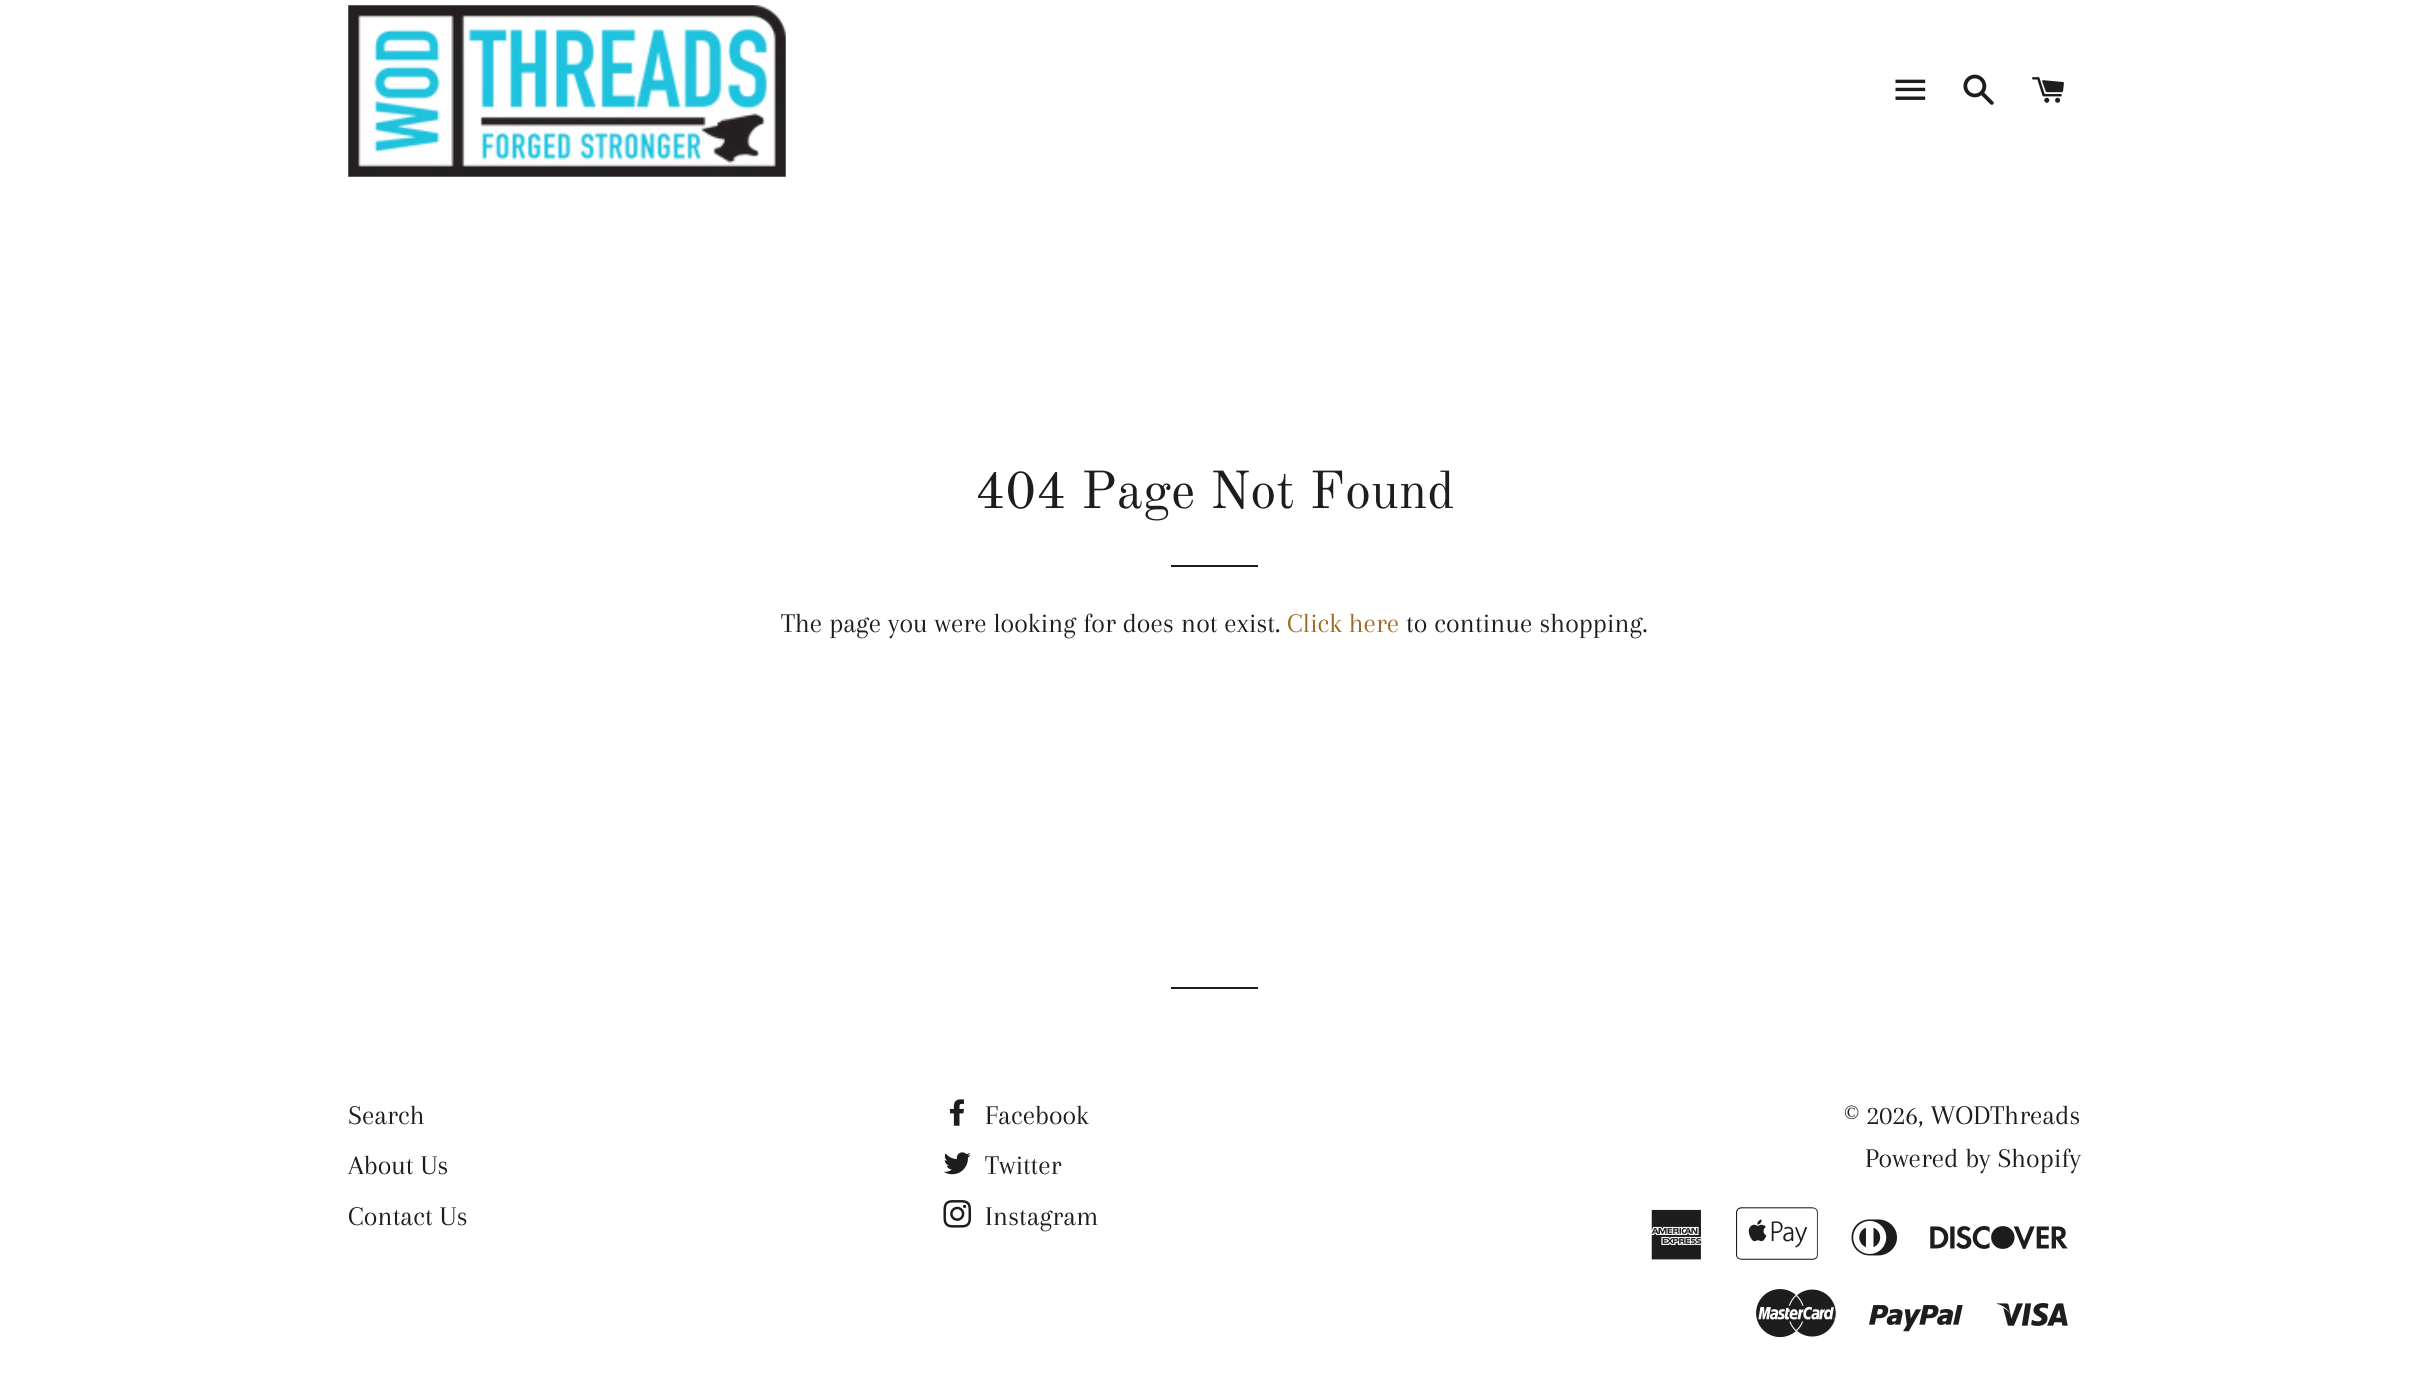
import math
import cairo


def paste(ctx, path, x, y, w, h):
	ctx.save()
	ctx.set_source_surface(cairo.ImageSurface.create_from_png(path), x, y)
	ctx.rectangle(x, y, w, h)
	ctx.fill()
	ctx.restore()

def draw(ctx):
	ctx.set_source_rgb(1, 1, 1)
	ctx.paint()
	paste(ctx, 'media/1.png', 348, 5, 438, 172)
	paste(ctx, 'media/2.png', 1895, 79, 31, 21)
	paste(ctx, 'media/3.png', 1963, 74, 31, 31)
	paste(ctx, 'media/4.png', 2032, 77, 32, 26)
	ctx.select_font_face('Old Standard TT')
	ctx.set_font_size(52.5)
	ctx.set_source_rgb(0.11, 0.114, 0.114)
	ctx.move_to(975, 508)
	ctx.show_text('404 Page Not Found')
	ctx.rectangle(1171, 565, 87, 2)
	ctx.fill()
	ctx.select_font_face('Arapey')
	ctx.set_font_size(28)
	ctx.move_to(781, 632)
	ctx.show_text('The page you were looking for does not exist.')
	ctx.set_source_rgb(0.635, 0.42, 0.145)
	ctx.move_to(1287, 632)
	ctx.show_text('Click here')
	ctx.set_source_rgb(0.11, 0.114, 0.114)
	ctx.move_to(1406, 632)
	ctx.show_text('to continue shopping.')
	ctx.rectangle(1171, 987, 87, 2)
	ctx.fill()
	for x, y, s in [
		(348, 1124, 'Search'),
		(348, 1174, 'About Us'),
		(348, 1225, 'Contact Us'),
	]:
		ctx.move_to(x, y)
		ctx.show_text(s)
	paste(ctx, 'media/5.png', 949, 1099, 15, 27)
	ctx.move_to(985, 1124)
	ctx.show_text('Facebook')
	paste(ctx, 'media/6.png', 943, 1152, 28, 23)
	ctx.move_to(985, 1174)
	ctx.show_text('Twitter')
	paste(ctx, 'media/7.png', 943, 1200, 29, 28)
	for x, y, s in [
		(985, 1225, 'Instagram'),
		(1844, 1124, '© 2026, WODThreads'),
		(1865, 1167, 'Powered by Shopify'),
	]:
		ctx.move_to(x, y)
		ctx.show_text(s)
	paste(ctx, 'media/8.png', 1651, 1209, 51, 51)
	paste(ctx, 'media/9.png', 1736, 1207, 82, 53)
	paste(ctx, 'media/10.png', 1851, 1219, 46, 37)
	paste(ctx, 'media/11.png', 1930, 1226, 138, 23)
	paste(ctx, 'media/12.png', 1756, 1289, 80, 49)
	paste(ctx, 'media/13.png', 1869, 1305, 94, 27)
	paste(ctx, 'media/14.png', 1996, 1303, 72, 23)


surface = cairo.ImageSurface(cairo.FORMAT_RGB24, 2429, 1382)
ctx = cairo.Context(surface)
options = cairo.FontOptions()
options.set_hint_metrics(cairo.HINT_METRICS_OFF)
options.set_hint_style(cairo.HINT_STYLE_NONE)
ctx.set_font_options(options)
ctx.set_miter_limit(4)
draw(ctx)
surface.write_to_png('image.png')
